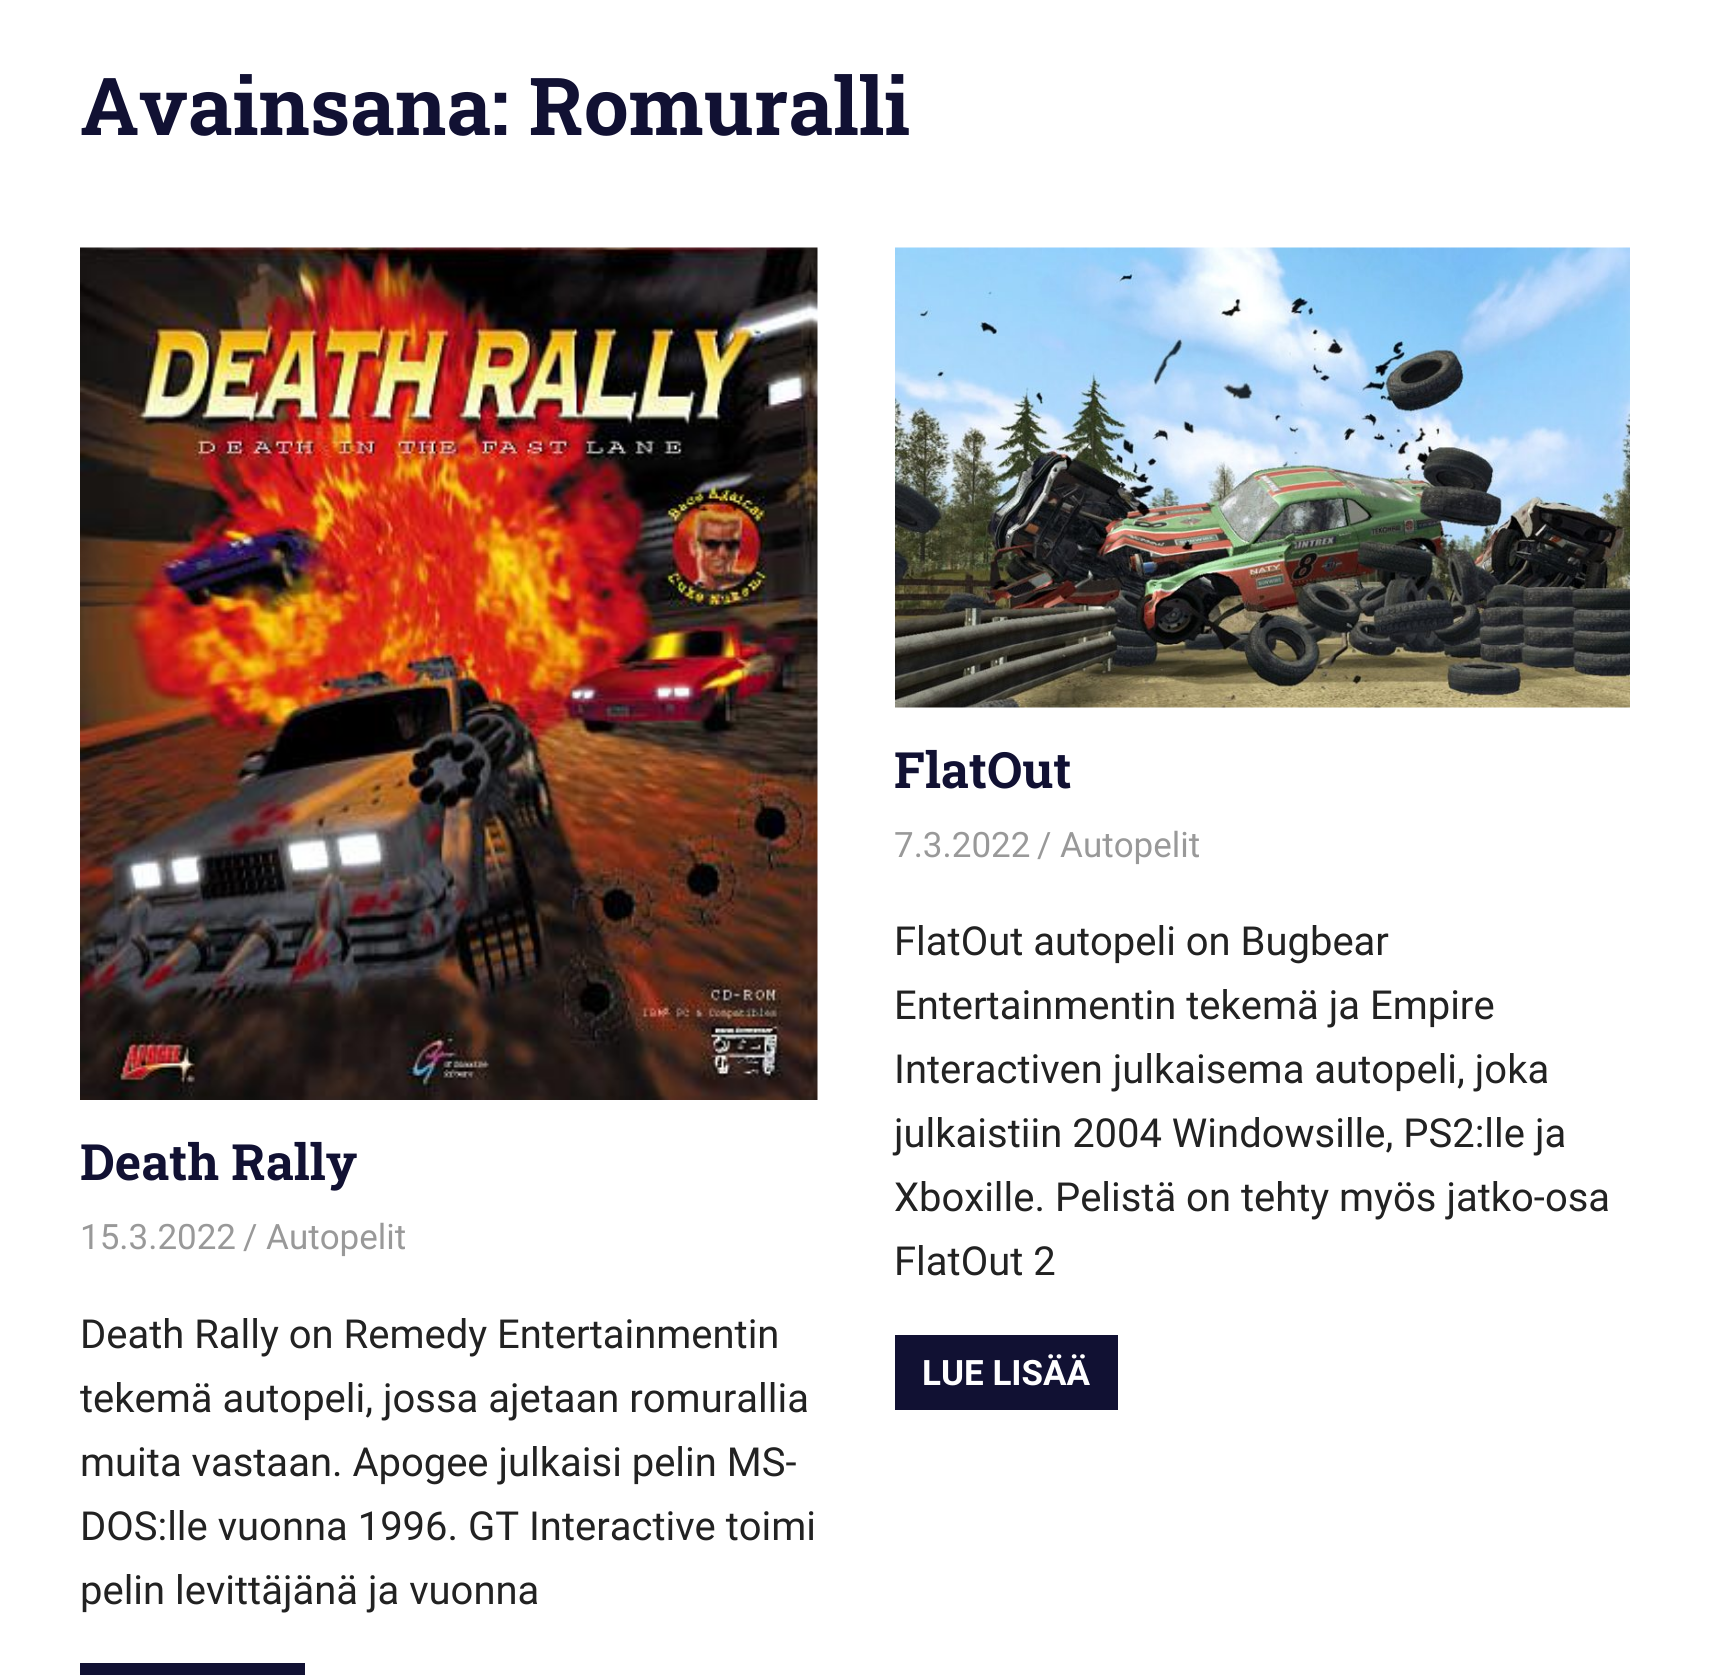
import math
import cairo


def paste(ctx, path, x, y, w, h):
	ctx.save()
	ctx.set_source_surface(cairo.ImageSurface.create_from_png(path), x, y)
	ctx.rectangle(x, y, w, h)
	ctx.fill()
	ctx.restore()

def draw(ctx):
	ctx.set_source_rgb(1, 1, 1)
	ctx.paint()
	ctx.select_font_face('Roboto Slab', cairo.FONT_SLANT_NORMAL, cairo.FONT_WEIGHT_BOLD)
	ctx.set_font_size(80)
	ctx.set_source_rgb(0.067, 0.067, 0.2)
	ctx.move_to(80, 135)
	ctx.show_text('Avainsana: Romuralli')
	paste(ctx, 'media/1.png', 80, 247, 738, 853)
	ctx.set_font_size(50)
	ctx.move_to(80, 1180)
	ctx.show_text('Death Rally')
	ctx.select_font_face('Roboto')
	ctx.set_font_size(35)
	ctx.set_source_rgb(0.6, 0.6, 0.6)
	ctx.move_to(80, 1249)
	ctx.show_text('15.3.2022')
	ctx.move_to(243, 1249)
	ctx.show_text('/ Autopelit')
	ctx.set_font_size(40)
	ctx.set_source_rgb(0.133, 0.133, 0.133)
	for x, y, s in [
		(80, 1348, 'Death Rally on Remedy Entertainmentin'),
		(80, 1412, 'tekemä autopeli, jossa ajetaan romurallia'),
		(80, 1476, 'muita vastaan. Apogee julkaisi pelin MS-'),
		(80, 1540, 'DOS:lle vuonna 1996. GT Interactive toimi'),
		(80, 1604, 'pelin levittäjänä ja vuonna'),
	]:
		ctx.move_to(x, y)
		ctx.show_text(s)
	ctx.set_source_rgb(0.067, 0.067, 0.2)
	ctx.rectangle(80, 1663, 225, 12)
	ctx.fill()
	paste(ctx, 'media/2.png', 895, 247, 735, 461)
	ctx.select_font_face('Roboto Slab', cairo.FONT_SLANT_NORMAL, cairo.FONT_WEIGHT_BOLD)
	ctx.set_font_size(50)
	ctx.move_to(894, 788)
	ctx.show_text('FlatOut')
	ctx.select_font_face('Roboto')
	ctx.set_font_size(35)
	ctx.set_source_rgb(0.6, 0.6, 0.6)
	ctx.move_to(894, 857)
	ctx.show_text('7.3.2022')
	ctx.move_to(1037, 857)
	ctx.show_text('/ Autopelit')
	ctx.set_font_size(40)
	ctx.set_source_rgb(0.133, 0.133, 0.133)
	for x, y, s in [
		(894, 955, 'FlatOut autopeli on Bugbear'),
		(894, 1019, 'Entertainmentin tekemä ja Empire'),
		(894, 1083, 'Interactiven julkaisema autopeli, joka'),
		(894, 1147, 'julkaistiin 2004 Windowsille, PS2:lle ja'),
		(894, 1211, 'Xboxille. Pelistä on tehty myös jatko-osa'),
		(894, 1275, 'FlatOut 2'),
	]:
		ctx.move_to(x, y)
		ctx.show_text(s)
	ctx.set_source_rgb(0.067, 0.067, 0.2)
	ctx.rectangle(895, 1335, 223, 75)
	ctx.fill()
	ctx.select_font_face('Roboto', cairo.FONT_SLANT_NORMAL, cairo.FONT_WEIGHT_BOLD)
	ctx.set_font_size(35)
	ctx.set_source_rgb(1, 1, 1)
	ctx.move_to(922, 1385)
	ctx.show_text('LUE LISÄÄ')


surface = cairo.ImageSurface(cairo.FORMAT_RGB24, 1711, 1675)
ctx = cairo.Context(surface)
options = cairo.FontOptions()
options.set_hint_metrics(cairo.HINT_METRICS_OFF)
options.set_hint_style(cairo.HINT_STYLE_NONE)
ctx.set_font_options(options)
ctx.set_miter_limit(4)
draw(ctx)
surface.write_to_png('image.png')
